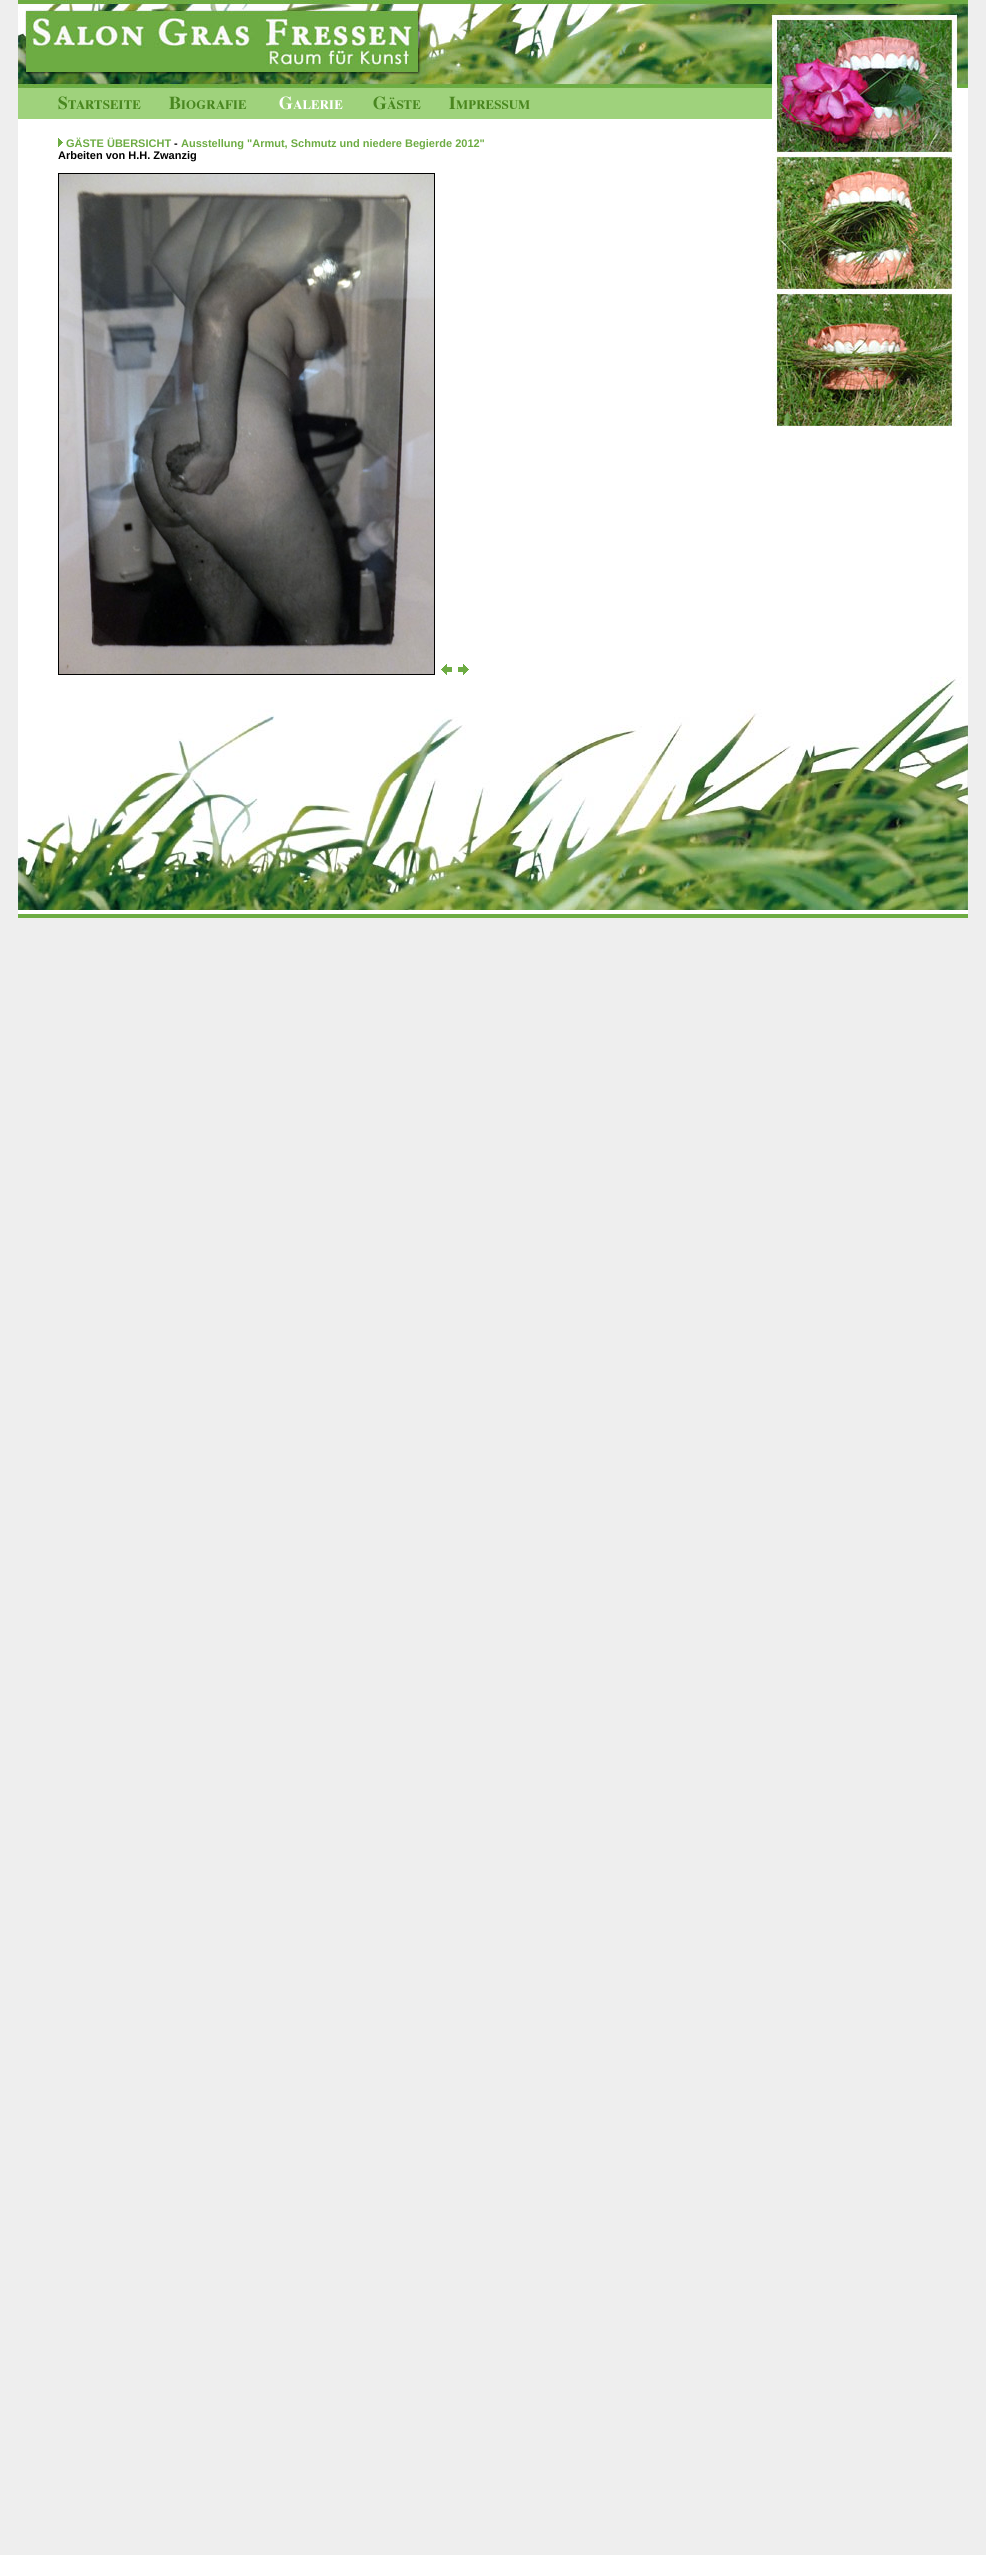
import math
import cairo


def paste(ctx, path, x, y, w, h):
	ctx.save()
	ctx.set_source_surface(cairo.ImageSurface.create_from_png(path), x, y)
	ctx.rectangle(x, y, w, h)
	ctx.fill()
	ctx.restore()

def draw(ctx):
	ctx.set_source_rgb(0.933, 0.933, 0.933)
	ctx.paint()
	paste(ctx, 'media/1.png', 18, 0, 950, 88)
	ctx.set_source_rgb(0.624, 0.824, 0.486)
	ctx.rectangle(18, 88, 754, 31)
	ctx.fill()
	paste(ctx, 'media/2.png', 58, 96, 83, 14)
	paste(ctx, 'media/3.png', 169, 96, 78, 13)
	paste(ctx, 'media/4.png', 279, 96, 64, 14)
	paste(ctx, 'media/5.png', 373, 96, 48, 14)
	paste(ctx, 'media/6.png', 449, 96, 81, 13)
	paste(ctx, 'media/7.png', 772, 88, 196, 31)
	ctx.set_source_rgb(1, 1, 1)
	ctx.rectangle(18, 119, 950, 558)
	ctx.fill()
	paste(ctx, 'media/8.png', 58, 138, 5, 9)
	ctx.select_font_face('Liberation Sans', cairo.FONT_SLANT_NORMAL, cairo.FONT_WEIGHT_BOLD)
	ctx.set_font_size(11)
	ctx.set_source_rgb(0.427, 0.675, 0.263)
	ctx.move_to(66, 147)
	ctx.show_text('GÄSTE ÜBERSICHT')
	ctx.set_source_rgb(0, 0, 0)
	ctx.move_to(174, 147)
	ctx.show_text('-')
	ctx.set_source_rgb(0.427, 0.675, 0.263)
	ctx.move_to(181, 147)
	ctx.show_text('Ausstellung "Armut, Schmutz und niedere Begierde 2012"')
	ctx.set_source_rgb(0, 0, 0)
	ctx.move_to(58, 159)
	ctx.show_text('Arbeiten von H.H. Zwanzig')
	ctx.rectangle(58.5, 173.5, 376, 501)
	ctx.set_line_width(1)
	ctx.stroke()
	paste(ctx, 'media/9.png', 59, 174, 375, 500)
	paste(ctx, 'media/10.png', 441, 664, 11, 11)
	paste(ctx, 'media/11.png', 458, 664, 11, 11)
	paste(ctx, 'media/12.png', 772, 119, 184, 308)
	paste(ctx, 'media/13.png', 18, 677, 950, 233)
	paste(ctx, 'media/14.png', 18, 910, 950, 8)


surface = cairo.ImageSurface(cairo.FORMAT_RGB24, 986, 2555)
ctx = cairo.Context(surface)
options = cairo.FontOptions()
options.set_hint_metrics(cairo.HINT_METRICS_OFF)
options.set_hint_style(cairo.HINT_STYLE_NONE)
ctx.set_font_options(options)
ctx.set_miter_limit(4)
draw(ctx)
surface.write_to_png('image.png')
